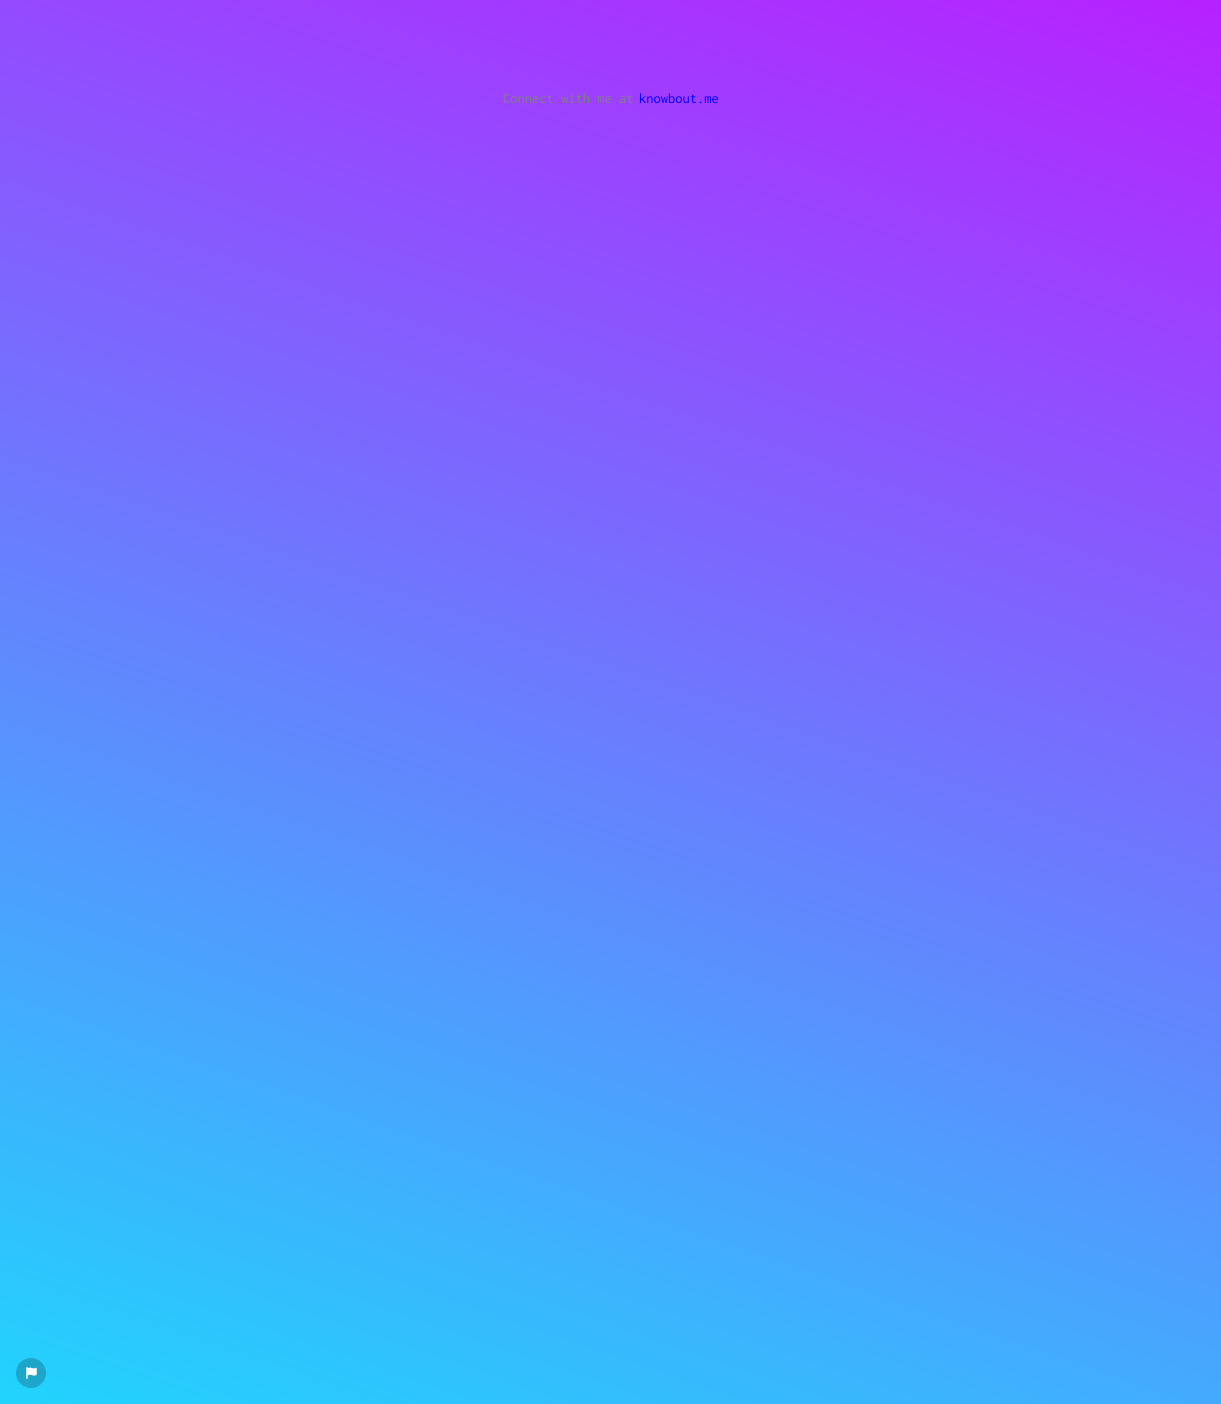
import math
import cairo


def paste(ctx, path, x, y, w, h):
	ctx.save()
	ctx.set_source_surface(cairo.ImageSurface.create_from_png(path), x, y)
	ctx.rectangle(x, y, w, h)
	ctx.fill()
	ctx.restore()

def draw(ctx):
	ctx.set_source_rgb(1, 1, 1)
	ctx.paint()
	gradient = cairo.LinearGradient(330, 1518, 891, -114)
	gradient.add_color_stop_rgba(0, 0.129, 0.831, 0.992, 1)
	gradient.add_color_stop_rgba(1, 0.718, 0.129, 1, 1)
	ctx.set_source(gradient)
	ctx.rectangle(0, 0, 1221, 1404)
	ctx.fill()
	ctx.select_font_face('Inconsolata')
	ctx.set_font_size(14.5)
	ctx.set_source_rgb(0.502, 0.502, 0.502)
	ctx.move_to(503, 103)
	ctx.show_text('Connect with me at')
	ctx.set_source_rgb(0, 0, 1)
	ctx.move_to(639, 103)
	ctx.show_text('knowbout.me')
	ctx.set_source_rgba(0, 0, 0, 0.2)
	ctx.new_path()
	ctx.arc(31, 1373, 15, 0, 2 * math.pi)
	ctx.fill()
	paste(ctx, 'media/1.png', 26, 1367, 11, 12)


surface = cairo.ImageSurface(cairo.FORMAT_RGB24, 1221, 1404)
ctx = cairo.Context(surface)
options = cairo.FontOptions()
options.set_hint_metrics(cairo.HINT_METRICS_OFF)
options.set_hint_style(cairo.HINT_STYLE_NONE)
ctx.set_font_options(options)
ctx.set_miter_limit(4)
draw(ctx)
surface.write_to_png('image.png')
